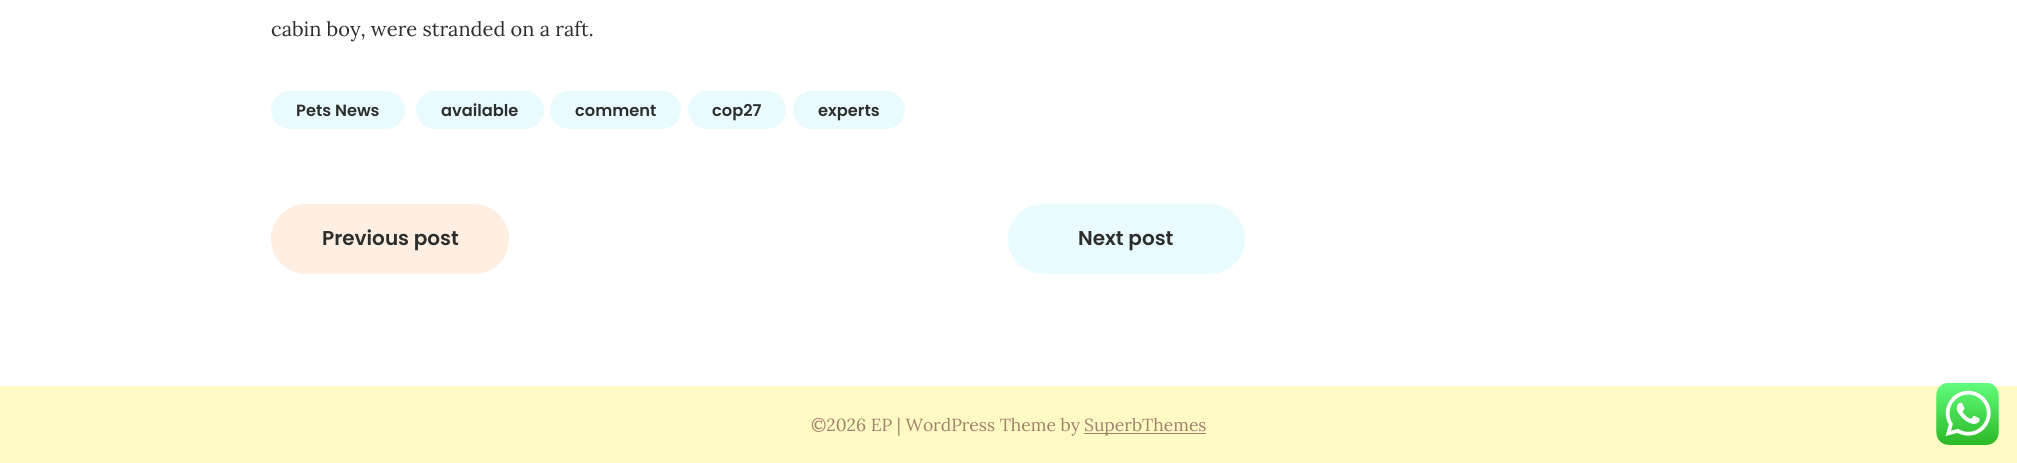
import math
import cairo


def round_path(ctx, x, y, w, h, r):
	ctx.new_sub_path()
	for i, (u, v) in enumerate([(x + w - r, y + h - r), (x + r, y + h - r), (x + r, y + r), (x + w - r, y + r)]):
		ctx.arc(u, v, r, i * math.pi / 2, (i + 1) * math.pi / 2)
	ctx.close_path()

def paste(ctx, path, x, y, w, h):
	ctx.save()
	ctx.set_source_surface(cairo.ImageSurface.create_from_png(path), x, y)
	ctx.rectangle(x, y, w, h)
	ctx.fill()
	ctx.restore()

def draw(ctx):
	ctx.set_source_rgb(1, 1, 1)
	ctx.paint()
	ctx.select_font_face('Lora')
	ctx.set_font_size(20)
	ctx.set_source_rgb(0.176, 0.176, 0.176)
	ctx.move_to(271, 36)
	ctx.show_text('cabin boy, were stranded on a raft.')
	ctx.set_source_rgb(0.914, 0.984, 1)
	round_path(ctx, 271, 91, 134, 38, 19)
	ctx.fill()
	ctx.select_font_face('Poppins SemiBold')
	ctx.set_font_size(16.25)
	ctx.set_source_rgb(0.176, 0.176, 0.176)
	ctx.move_to(296, 116)
	ctx.show_text('Pets News')
	ctx.set_source_rgb(0.914, 0.984, 1)
	round_path(ctx, 416, 91, 128, 38, 19)
	ctx.fill()
	ctx.set_source_rgb(0.176, 0.176, 0.176)
	ctx.move_to(441, 116)
	ctx.show_text('available')
	ctx.set_source_rgb(0.914, 0.984, 1)
	round_path(ctx, 550, 91, 131, 38, 19)
	ctx.fill()
	ctx.set_source_rgb(0.176, 0.176, 0.176)
	ctx.move_to(575, 116)
	ctx.show_text('comment')
	ctx.set_source_rgb(0.914, 0.984, 1)
	round_path(ctx, 688, 91, 98, 38, 19)
	ctx.fill()
	ctx.set_source_rgb(0.176, 0.176, 0.176)
	ctx.move_to(712, 116)
	ctx.show_text('cop27')
	ctx.set_source_rgb(0.914, 0.984, 1)
	round_path(ctx, 793, 91, 112, 38, 19)
	ctx.fill()
	ctx.set_source_rgb(0.176, 0.176, 0.176)
	ctx.move_to(818, 116)
	ctx.show_text('experts')
	ctx.set_source_rgb(1, 0.933, 0.886)
	round_path(ctx, 271, 204, 238, 70, 35)
	ctx.fill()
	ctx.set_font_size(20)
	ctx.set_source_rgb(0.176, 0.176, 0.176)
	ctx.move_to(322, 245)
	ctx.show_text('Previous post')
	ctx.set_source_rgb(0.914, 0.984, 1)
	round_path(ctx, 1008, 204, 237, 70, 35)
	ctx.fill()
	ctx.set_source_rgb(0.176, 0.176, 0.176)
	ctx.move_to(1078, 245)
	ctx.show_text('Next post')
	ctx.set_source_rgb(1, 0.976, 0.769)
	ctx.rectangle(0, 387, 2017, 76)
	ctx.fill()
	ctx.set_source_rgb(1, 0.98, 0.816)
	ctx.rectangle(0, 386, 2017, 1)
	ctx.fill()
	ctx.select_font_face('Lora')
	ctx.set_font_size(17.5)
	ctx.set_source_rgb(0.627, 0.506, 0.416)
	ctx.move_to(811, 431)
	ctx.show_text('©2026 EP | WordPress Theme by')
	ctx.rectangle(1084, 433, 122, 1)
	ctx.fill()
	ctx.move_to(1084, 431)
	ctx.show_text('SuperbThemes')
	paste(ctx, 'media/1.png', 1936, 383, 63, 62)


surface = cairo.ImageSurface(cairo.FORMAT_RGB24, 2017, 463)
ctx = cairo.Context(surface)
options = cairo.FontOptions()
options.set_hint_metrics(cairo.HINT_METRICS_OFF)
options.set_hint_style(cairo.HINT_STYLE_NONE)
ctx.set_font_options(options)
ctx.set_miter_limit(4)
draw(ctx)
surface.write_to_png('image.png')
